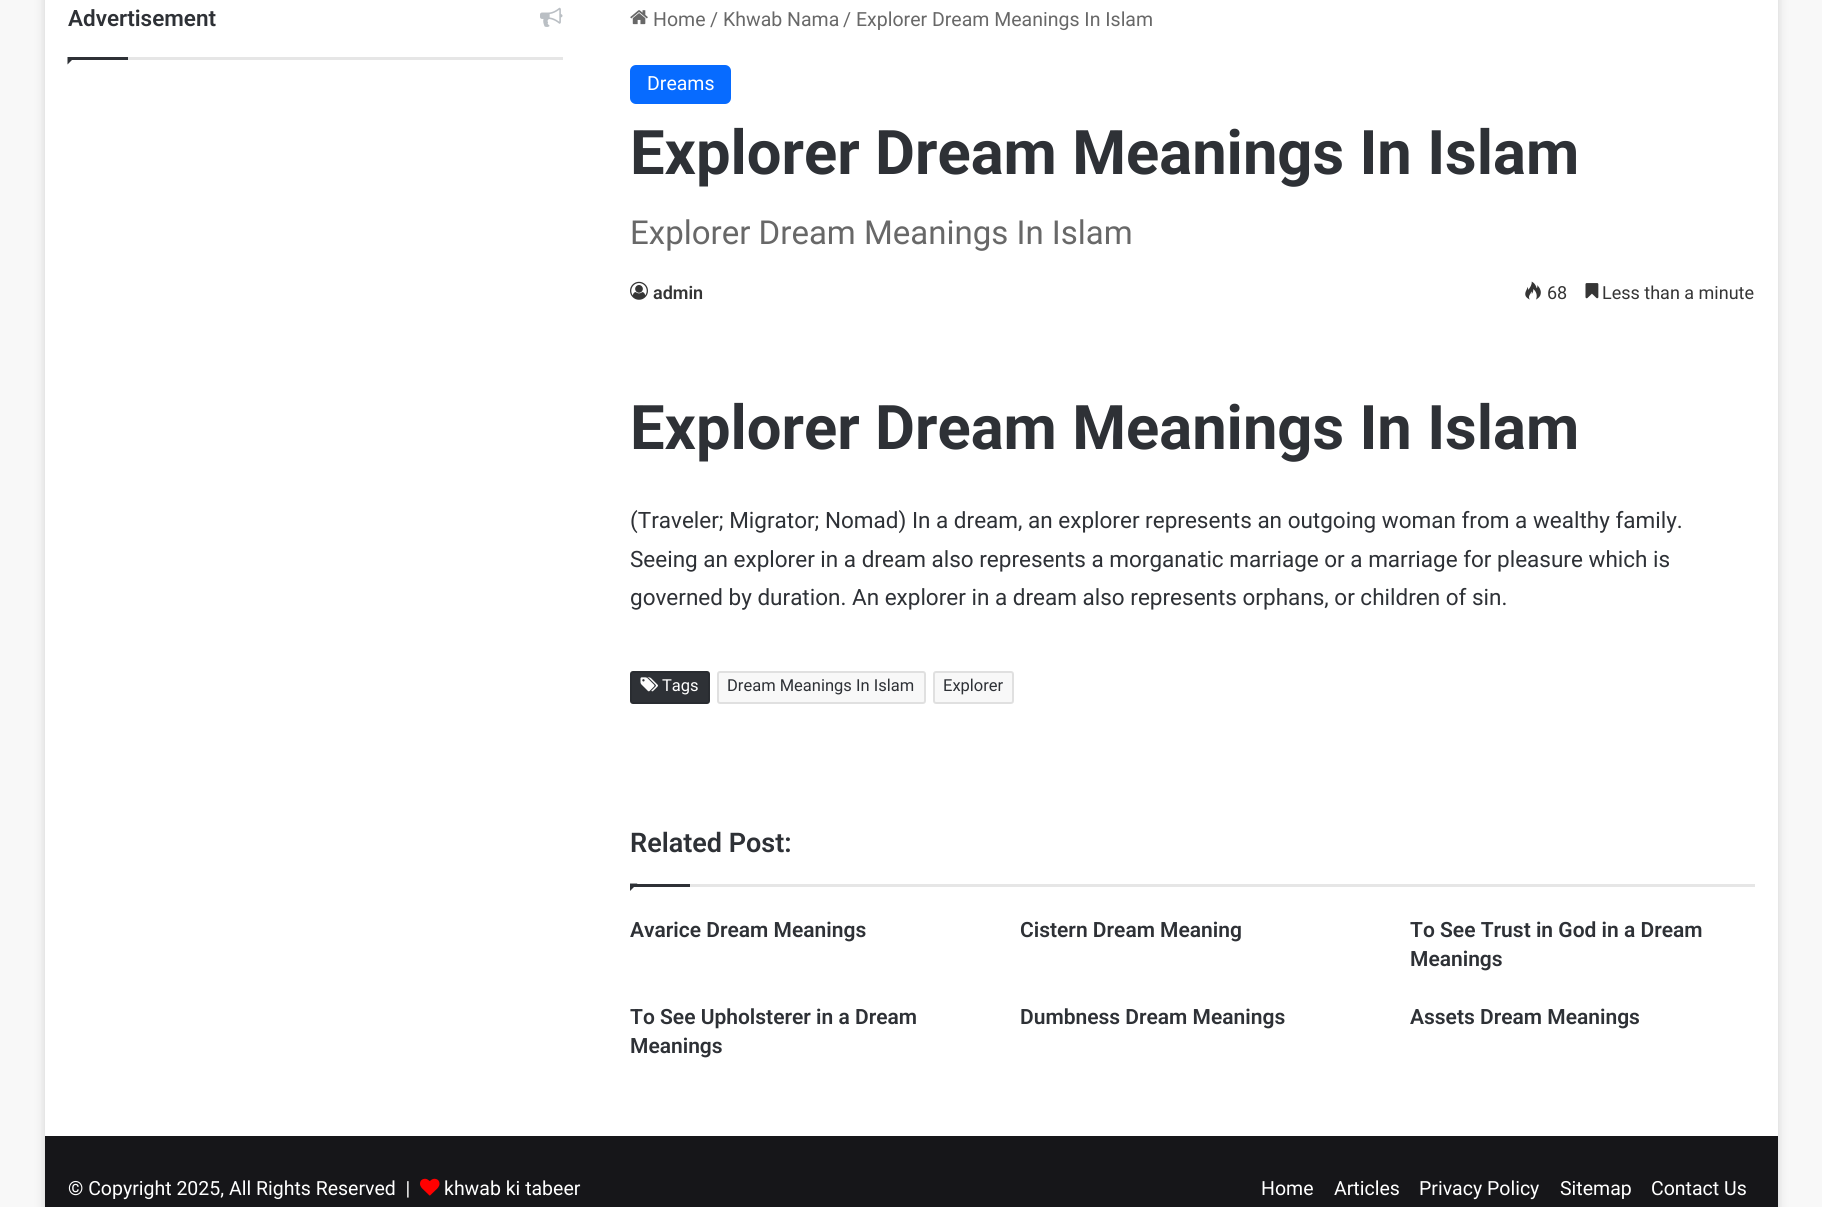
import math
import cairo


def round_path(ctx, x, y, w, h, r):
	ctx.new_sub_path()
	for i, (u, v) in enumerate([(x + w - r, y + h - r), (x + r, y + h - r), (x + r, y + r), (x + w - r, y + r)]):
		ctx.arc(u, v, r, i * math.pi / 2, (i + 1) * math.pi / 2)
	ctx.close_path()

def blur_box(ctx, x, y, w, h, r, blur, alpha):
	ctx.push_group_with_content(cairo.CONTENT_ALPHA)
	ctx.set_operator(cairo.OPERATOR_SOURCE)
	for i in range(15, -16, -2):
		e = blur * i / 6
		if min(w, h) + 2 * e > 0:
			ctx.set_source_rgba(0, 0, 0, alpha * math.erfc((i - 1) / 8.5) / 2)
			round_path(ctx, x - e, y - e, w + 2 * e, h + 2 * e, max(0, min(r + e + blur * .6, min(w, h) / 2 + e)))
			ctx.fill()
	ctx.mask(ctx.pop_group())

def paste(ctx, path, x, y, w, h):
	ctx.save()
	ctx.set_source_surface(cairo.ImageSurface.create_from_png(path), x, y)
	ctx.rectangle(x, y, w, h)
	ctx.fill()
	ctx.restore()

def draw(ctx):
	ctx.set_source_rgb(0.969, 0.969, 0.969)
	ctx.paint()
	ctx.set_source_rgb(0.671, 0.671, 0.671)
	blur_box(ctx, 45, -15, 1733, 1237, 0, 5, 0.5)
	ctx.set_source_rgb(1, 1, 1)
	ctx.rectangle(45, 0, 1733, 1136)
	ctx.fill()
	ctx.set_source_rgb(0.902, 0.902, 0.902)
	ctx.rectangle(128, 57, 435, 3)
	ctx.fill()
	ctx.select_font_face('Roboto SemiBold')
	ctx.set_font_size(22.5)
	ctx.set_source_rgb(0.18, 0.192, 0.212)
	ctx.move_to(68, 26)
	ctx.show_text('Advertisement')
	paste(ctx, 'media/1.png', 540, 7, 23, 20)
	ctx.new_path()
	ctx.move_to(67.5, 57)
	ctx.line_to(75, 57)
	ctx.line_to(67.5, 64.5)
	ctx.close_path()
	ctx.fill()
	ctx.rectangle(68, 57, 60, 3)
	ctx.fill()
	paste(ctx, 'media/2.png', 630, 10, 18, 15)
	ctx.select_font_face('Roboto')
	ctx.set_font_size(19.5)
	ctx.set_source_rgb(0.408, 0.408, 0.408)
	for x, y, s in [
		(653, 26, 'Home'),
		(710, 26, '/'),
		(723, 26, 'Khwab Nama'),
		(843, 26, '/'),
		(856, 26, 'Explorer Dream Meanings In Islam'),
	]:
		ctx.move_to(x, y)
		ctx.show_text(s)
	ctx.set_source_rgb(0.031, 0.42, 1)
	round_path(ctx, 630, 65, 101, 39, 6)
	ctx.fill()
	ctx.set_source_rgb(1, 1, 1)
	ctx.move_to(647, 90)
	ctx.show_text('Dreams')
	ctx.select_font_face('Roboto', cairo.FONT_SLANT_NORMAL, cairo.FONT_WEIGHT_BOLD)
	ctx.set_font_size(61.5)
	ctx.set_source_rgb(0.18, 0.192, 0.212)
	ctx.move_to(630, 174)
	ctx.show_text('Explorer Dream Meanings In Islam')
	ctx.select_font_face('Roboto')
	ctx.set_font_size(33)
	ctx.set_source_rgb(0.408, 0.408, 0.408)
	ctx.move_to(630, 244)
	ctx.show_text('Explorer Dream Meanings In Islam')
	paste(ctx, 'media/3.png', 630, 281, 18, 19)
	ctx.select_font_face('Roboto SemiBold')
	ctx.set_font_size(18)
	ctx.set_source_rgb(0.208, 0.208, 0.208)
	ctx.move_to(653, 299)
	ctx.show_text('admin')
	paste(ctx, 'media/4.png', 1525, 281, 16, 19)
	ctx.select_font_face('Roboto')
	ctx.move_to(1547, 299)
	ctx.show_text('68')
	paste(ctx, 'media/5.png', 1585, 283, 14, 16)
	ctx.move_to(1602, 299)
	ctx.show_text('Less than a minute')
	ctx.select_font_face('Roboto', cairo.FONT_SLANT_NORMAL, cairo.FONT_WEIGHT_BOLD)
	ctx.set_font_size(61.5)
	ctx.set_source_rgb(0.18, 0.192, 0.212)
	ctx.move_to(630, 449)
	ctx.show_text('Explorer Dream Meanings In Islam')
	ctx.select_font_face('Roboto')
	ctx.set_font_size(22.5)
	for x, y, s in [
		(630, 528, '(Traveler; Migrator; Nomad) In a dream, an explorer represents an outgoing woman from a wealthy family.'),
		(630, 567, 'Seeing an explorer in a dream also represents a morganatic marriage or a marriage for pleasure which is'),
		(630, 605, 'governed by duration. An explorer in a dream also represents orphans, or children of sin.'),
	]:
		ctx.move_to(x, y)
		ctx.show_text(s)
	round_path(ctx, 630, 671, 80, 33, 3)
	ctx.fill()
	round_path(ctx, 631, 672, 78, 31, 2)
	ctx.set_source_rgba(0.012, 0.012, 0.012, 0.1)
	ctx.stroke()
	paste(ctx, 'media/6.png', 640, 677, 18, 15)
	ctx.set_font_size(16.5)
	ctx.set_source_rgb(1, 1, 1)
	ctx.move_to(662, 691)
	ctx.show_text('Tags')
	ctx.set_source_rgb(0.969, 0.969, 0.969)
	round_path(ctx, 717, 671, 209, 33, 3)
	ctx.fill()
	round_path(ctx, 718, 672, 207, 31, 2)
	ctx.set_source_rgba(0.012, 0.012, 0.012, 0.1)
	ctx.stroke()
	ctx.set_source_rgb(0.18, 0.192, 0.212)
	ctx.move_to(727, 691)
	ctx.show_text('Dream Meanings In Islam')
	ctx.set_source_rgb(0.969, 0.969, 0.969)
	round_path(ctx, 933, 671, 81, 33, 3)
	ctx.fill()
	round_path(ctx, 934, 672, 79, 31, 2)
	ctx.set_source_rgba(0.012, 0.012, 0.012, 0.1)
	ctx.stroke()
	ctx.set_source_rgb(0.18, 0.192, 0.212)
	ctx.move_to(943, 691)
	ctx.show_text('Explorer')
	ctx.set_source_rgb(0.902, 0.902, 0.902)
	ctx.rectangle(690, 884, 1065, 3)
	ctx.fill()
	ctx.select_font_face('Roboto SemiBold')
	ctx.set_font_size(27)
	ctx.set_source_rgb(0.18, 0.192, 0.212)
	ctx.move_to(630, 852)
	ctx.show_text('Related Post:')
	ctx.new_path()
	ctx.move_to(630, 883.5)
	ctx.line_to(637.5, 883.5)
	ctx.line_to(630, 891)
	ctx.close_path()
	ctx.fill()
	ctx.rectangle(630, 884, 60, 3)
	ctx.fill()
	ctx.set_font_size(21)
	for x, y, s in [
		(630, 937, 'Avarice Dream Meanings'),
		(1020, 937, 'Cistern Dream Meaning'),
		(1410, 937, 'To See Trust in God in a Dream'),
		(1410, 966, 'Meanings'),
		(630, 1024, 'To See Upholsterer in a Dream'),
		(630, 1053, 'Meanings'),
		(1020, 1024, 'Dumbness Dream Meanings'),
		(1410, 1024, 'Assets Dream Meanings'),
	]:
		ctx.move_to(x, y)
		ctx.show_text(s)
	ctx.set_source_rgb(0.086, 0.086, 0.098)
	ctx.rectangle(45, 1136, 1733, 71)
	ctx.fill()
	ctx.select_font_face('Roboto')
	ctx.set_font_size(19.5)
	ctx.set_source_rgb(1, 1, 1)
	ctx.move_to(68, 1195)
	ctx.show_text('© Copyright 2025, All Rights Reserved  |')
	paste(ctx, 'media/7.png', 420, 1178, 20, 18)
	for x, y, s in [
		(444, 1195, 'khwab ki tabeer'),
		(1261, 1195, 'Home'),
		(1334, 1195, 'Articles'),
		(1419, 1195, 'Privacy Policy'),
		(1560, 1195, 'Sitemap'),
		(1651, 1195, 'Contact Us'),
	]:
		ctx.move_to(x, y)
		ctx.show_text(s)


surface = cairo.ImageSurface(cairo.FORMAT_RGB24, 1822, 1207)
ctx = cairo.Context(surface)
options = cairo.FontOptions()
options.set_hint_metrics(cairo.HINT_METRICS_OFF)
options.set_hint_style(cairo.HINT_STYLE_NONE)
ctx.set_font_options(options)
ctx.set_miter_limit(4)
draw(ctx)
surface.write_to_png('image.png')
